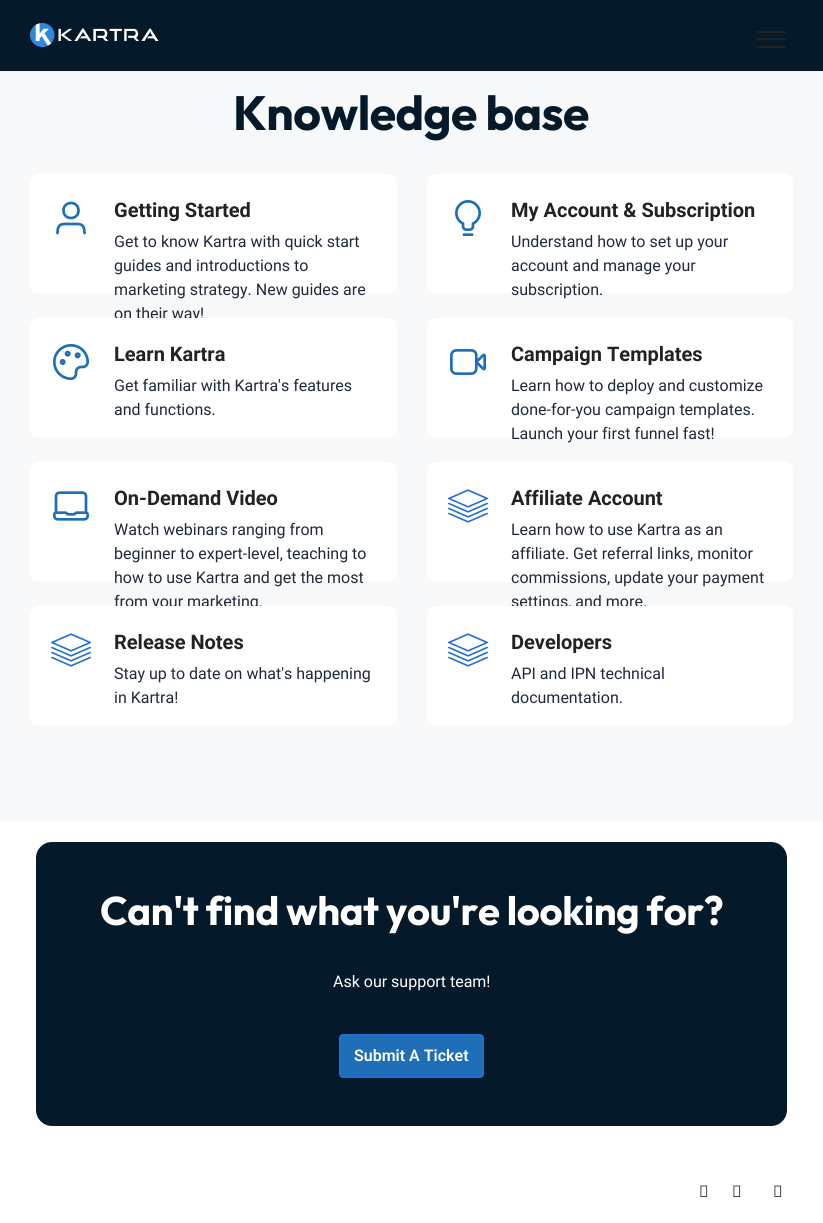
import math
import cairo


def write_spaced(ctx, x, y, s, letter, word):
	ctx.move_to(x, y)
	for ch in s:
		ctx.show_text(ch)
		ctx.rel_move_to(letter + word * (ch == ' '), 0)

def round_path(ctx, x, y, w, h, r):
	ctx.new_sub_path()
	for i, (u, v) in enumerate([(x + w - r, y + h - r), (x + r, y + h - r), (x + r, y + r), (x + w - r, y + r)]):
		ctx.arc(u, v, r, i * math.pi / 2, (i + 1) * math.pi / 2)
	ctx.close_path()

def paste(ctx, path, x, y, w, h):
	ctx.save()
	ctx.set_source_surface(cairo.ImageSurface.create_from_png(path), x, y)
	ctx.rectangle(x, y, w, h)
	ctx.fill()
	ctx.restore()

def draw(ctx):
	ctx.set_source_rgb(1, 1, 1)
	ctx.paint()
	ctx.set_source_rgb(0.016, 0.102, 0.165)
	ctx.rectangle(0, 0, 823, 71)
	ctx.fill()
	ctx.set_source_rgb(0.945, 0.945, 0.945)
	ctx.rectangle(0, 71, 823, 1)
	ctx.fill()
	paste(ctx, 'media/1.png', 30, 23, 129, 24)
	ctx.set_source_rgb(0.133, 0.133, 0.133)
	round_path(ctx, 756, 38, 30, 2, 1)
	ctx.fill()
	round_path(ctx, 756, 31, 30, 2, 1)
	ctx.fill()
	round_path(ctx, 756, 46, 30, 2, 1)
	ctx.fill()
	ctx.set_source_rgb(0.965, 0.969, 0.973)
	ctx.rectangle(0, 72, 823, 750)
	ctx.fill()
	ctx.select_font_face('Outfit', cairo.FONT_SLANT_NORMAL, cairo.FONT_WEIGHT_BOLD)
	ctx.set_font_size(48)
	ctx.set_source_rgb(0.016, 0.102, 0.165)
	write_spaced(ctx, 233, 130, 'Knowledge base', -0.5, 0)
	ctx.set_source_rgb(1, 1, 1)
	round_path(ctx, 30, 174, 367, 120, 8)
	ctx.fill()
	ctx.new_path()
	ctx.move_to(84.5, 233)
	ctx.curve_to(84.5, 222.5, 79, 224, 71, 224)
	ctx.curve_to(63, 224, 57.5, 222.5, 57.5, 233)
	ctx.move_to(78.5, 210.5)
	ctx.curve_to(78.5, 220.5, 63.5, 220.5, 63.5, 210.5)
	ctx.curve_to(63.5, 200.5, 78.5, 200.5, 78.5, 210.5)
	ctx.close_path()
	ctx.set_source_rgb(0.122, 0.431, 0.722)
	ctx.set_line_width(2.7)
	ctx.set_line_cap(cairo.LINE_CAP_ROUND)
	ctx.set_line_join(cairo.LINE_JOIN_ROUND)
	ctx.stroke()
	ctx.select_font_face('Roboto', cairo.FONT_SLANT_NORMAL, cairo.FONT_WEIGHT_BOLD)
	ctx.set_font_size(20)
	ctx.set_source_rgb(0.133, 0.133, 0.133)
	ctx.move_to(114, 217)
	ctx.show_text('Getting Started')
	ctx.select_font_face('Roboto')
	ctx.set_font_size(16)
	ctx.set_source_rgb(0.125, 0.161, 0.224)
	for x, y, s in [
		(114, 247, 'Get to know Kartra with quick start'),
		(114, 271, 'guides and introductions to'),
		(114, 295, 'marketing strategy. New guides are'),
		(114, 319, 'on their way!'),
	]:
		ctx.move_to(x, y)
		ctx.show_text(s)
	ctx.set_source_rgb(1, 1, 1)
	round_path(ctx, 427, 174, 366, 120, 8)
	ctx.fill()
	paste(ctx, 'media/2.png', 455, 200, 26, 36)
	ctx.select_font_face('Roboto', cairo.FONT_SLANT_NORMAL, cairo.FONT_WEIGHT_BOLD)
	ctx.set_font_size(20)
	ctx.set_source_rgb(0.133, 0.133, 0.133)
	ctx.move_to(511, 217)
	ctx.show_text('My Account & Subscription')
	ctx.select_font_face('Roboto')
	ctx.set_font_size(16)
	ctx.set_source_rgb(0.125, 0.161, 0.224)
	for x, y, s in [
		(511, 247, 'Understand how to set up your'),
		(511, 271, 'account and manage your'),
		(511, 295, 'subscription.'),
	]:
		ctx.move_to(x, y)
		ctx.show_text(s)
	ctx.set_source_rgb(1, 1, 1)
	round_path(ctx, 30, 318, 367, 120, 8)
	ctx.fill()
	paste(ctx, 'media/3.png', 53, 344, 36, 36)
	ctx.select_font_face('Roboto', cairo.FONT_SLANT_NORMAL, cairo.FONT_WEIGHT_BOLD)
	ctx.set_font_size(20)
	ctx.set_source_rgb(0.133, 0.133, 0.133)
	ctx.move_to(114, 361)
	ctx.show_text('Learn Kartra')
	ctx.select_font_face('Roboto')
	ctx.set_font_size(16)
	ctx.set_source_rgb(0.125, 0.161, 0.224)
	ctx.move_to(114, 391)
	ctx.show_text('Get familiar with Kartra\'s features')
	ctx.move_to(114, 415)
	ctx.show_text('and functions.')
	ctx.set_source_rgb(1, 1, 1)
	round_path(ctx, 427, 318, 366, 120, 8)
	ctx.fill()
	paste(ctx, 'media/4.png', 450, 349, 36, 26)
	ctx.select_font_face('Roboto', cairo.FONT_SLANT_NORMAL, cairo.FONT_WEIGHT_BOLD)
	ctx.set_font_size(20)
	ctx.set_source_rgb(0.133, 0.133, 0.133)
	ctx.move_to(511, 361)
	ctx.show_text('Campaign Templates')
	ctx.select_font_face('Roboto')
	ctx.set_font_size(16)
	ctx.set_source_rgb(0.125, 0.161, 0.224)
	for x, y, s in [
		(511, 391, 'Learn how to deploy and customize'),
		(511, 415, 'done-for-you campaign templates.'),
		(511, 439, 'Launch your first funnel fast!'),
	]:
		ctx.move_to(x, y)
		ctx.show_text(s)
	ctx.set_source_rgb(1, 1, 1)
	round_path(ctx, 30, 462, 367, 120, 8)
	ctx.fill()
	paste(ctx, 'media/5.png', 53, 491, 36, 30)
	ctx.select_font_face('Roboto', cairo.FONT_SLANT_NORMAL, cairo.FONT_WEIGHT_BOLD)
	ctx.set_font_size(20)
	ctx.set_source_rgb(0.133, 0.133, 0.133)
	ctx.move_to(114, 505)
	ctx.show_text('On-Demand Video')
	ctx.select_font_face('Roboto')
	ctx.set_font_size(16)
	ctx.set_source_rgb(0.125, 0.161, 0.224)
	for x, y, s in [
		(114, 535, 'Watch webinars ranging from'),
		(114, 559, 'beginner to expert-level, teaching to'),
		(114, 583, 'how to use Kartra and get the most'),
		(114, 607, 'from your marketing.'),
	]:
		ctx.move_to(x, y)
		ctx.show_text(s)
	ctx.set_source_rgb(1, 1, 1)
	round_path(ctx, 427, 462, 366, 120, 8)
	ctx.fill()
	paste(ctx, 'media/6.png', 448, 489, 40, 34)
	ctx.select_font_face('Roboto', cairo.FONT_SLANT_NORMAL, cairo.FONT_WEIGHT_BOLD)
	ctx.set_font_size(20)
	ctx.set_source_rgb(0.133, 0.133, 0.133)
	ctx.move_to(511, 505)
	ctx.show_text('Affiliate Account')
	ctx.select_font_face('Roboto')
	ctx.set_font_size(16)
	ctx.set_source_rgb(0.125, 0.161, 0.224)
	for x, y, s in [
		(511, 535, 'Learn how to use Kartra as an'),
		(511, 559, 'affiliate. Get referral links, monitor'),
		(511, 583, 'commissions, update your payment'),
		(511, 607, 'settings, and more.'),
	]:
		ctx.move_to(x, y)
		ctx.show_text(s)
	ctx.set_source_rgb(1, 1, 1)
	round_path(ctx, 30, 606, 367, 120, 8)
	ctx.fill()
	paste(ctx, 'media/6.png', 51, 633, 40, 34)
	ctx.select_font_face('Roboto', cairo.FONT_SLANT_NORMAL, cairo.FONT_WEIGHT_BOLD)
	ctx.set_font_size(20)
	ctx.set_source_rgb(0.133, 0.133, 0.133)
	ctx.move_to(114, 649)
	ctx.show_text('Release Notes')
	ctx.select_font_face('Roboto')
	ctx.set_font_size(16)
	ctx.set_source_rgb(0.125, 0.161, 0.224)
	ctx.move_to(114, 679)
	ctx.show_text('Stay up to date on what\'s happening')
	ctx.move_to(114, 703)
	ctx.show_text('in Kartra!')
	ctx.set_source_rgb(1, 1, 1)
	round_path(ctx, 427, 606, 366, 120, 8)
	ctx.fill()
	paste(ctx, 'media/6.png', 448, 633, 40, 34)
	ctx.select_font_face('Roboto', cairo.FONT_SLANT_NORMAL, cairo.FONT_WEIGHT_BOLD)
	ctx.set_font_size(20)
	ctx.set_source_rgb(0.133, 0.133, 0.133)
	ctx.move_to(511, 649)
	ctx.show_text('Developers')
	ctx.select_font_face('Roboto')
	ctx.set_font_size(16)
	ctx.set_source_rgb(0.125, 0.161, 0.224)
	ctx.move_to(511, 679)
	ctx.show_text('API and IPN technical')
	ctx.move_to(511, 703)
	ctx.show_text('documentation.')
	ctx.set_source_rgb(0.016, 0.102, 0.165)
	round_path(ctx, 36, 842, 751, 284, 16)
	ctx.fill()
	ctx.select_font_face('Outfit', cairo.FONT_SLANT_NORMAL, cairo.FONT_WEIGHT_BOLD)
	ctx.set_font_size(40)
	ctx.set_source_rgb(1, 1, 1)
	write_spaced(ctx, 100, 925, 'Can\'t find what you\'re looking for?', -0.35, 0)
	ctx.select_font_face('Roboto')
	ctx.set_font_size(16)
	ctx.move_to(333, 987)
	ctx.show_text('Ask our support team!')
	ctx.set_source_rgb(0.122, 0.431, 0.722)
	round_path(ctx, 340, 1035, 143, 42, 3)
	ctx.fill_preserve()
	ctx.set_source_rgb(0.153, 0.435, 0.816)
	ctx.set_line_width(2)
	ctx.set_line_cap(cairo.LINE_CAP_BUTT)
	ctx.set_line_join(cairo.LINE_JOIN_MITER)
	ctx.stroke()
	ctx.select_font_face('Roboto SemiBold')
	ctx.set_source_rgb(1, 1, 1)
	ctx.move_to(354, 1061)
	ctx.show_text('Submit A Ticket')
	paste(ctx, 'media/7.png', 700, 1185, 8, 12)
	paste(ctx, 'media/7.png', 733, 1185, 8, 12)
	paste(ctx, 'media/7.png', 774, 1185, 8, 12)


surface = cairo.ImageSurface(cairo.FORMAT_RGB24, 823, 1223)
ctx = cairo.Context(surface)
options = cairo.FontOptions()
options.set_hint_metrics(cairo.HINT_METRICS_OFF)
options.set_hint_style(cairo.HINT_STYLE_NONE)
ctx.set_font_options(options)
ctx.set_miter_limit(4)
draw(ctx)
surface.write_to_png('image.png')
